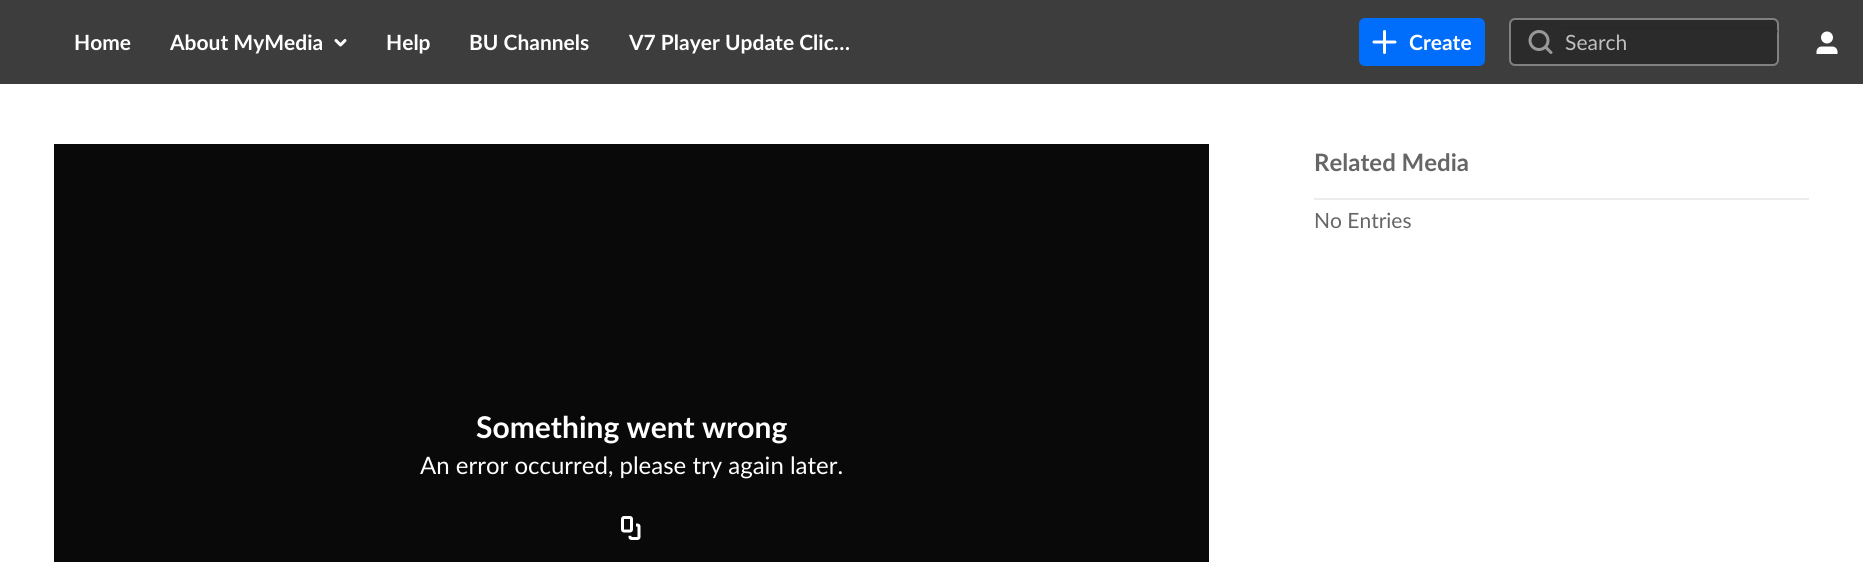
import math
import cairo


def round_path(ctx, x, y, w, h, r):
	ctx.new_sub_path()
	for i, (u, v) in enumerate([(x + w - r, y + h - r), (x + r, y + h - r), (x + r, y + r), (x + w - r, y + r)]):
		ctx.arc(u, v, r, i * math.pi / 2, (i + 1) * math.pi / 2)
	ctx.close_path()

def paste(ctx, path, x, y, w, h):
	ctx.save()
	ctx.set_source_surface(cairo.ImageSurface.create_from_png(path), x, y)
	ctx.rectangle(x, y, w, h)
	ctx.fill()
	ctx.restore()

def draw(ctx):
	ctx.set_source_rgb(1, 1, 1)
	ctx.paint()
	ctx.set_source_rgb(0.239, 0.239, 0.239)
	ctx.rectangle(0, 0, 1863, 84)
	ctx.fill()
	ctx.select_font_face('Lato', cairo.FONT_SLANT_NORMAL, cairo.FONT_WEIGHT_BOLD)
	ctx.set_font_size(21)
	ctx.set_source_rgb(1, 1, 1)
	ctx.move_to(74, 50)
	ctx.show_text('Home')
	ctx.move_to(170, 50)
	ctx.show_text('About MyMedia')
	paste(ctx, 'media/1.png', 334, 39, 13, 8)
	for x, y, s in [
		(386, 50, 'Help'),
		(469, 50, 'BU Channels'),
		(629, 50, 'V7 Player Update Clic…'),
	]:
		ctx.move_to(x, y)
		ctx.show_text(s)
	ctx.set_source_rgb(0, 0.431, 0.98)
	round_path(ctx, 1359, 18, 126, 48, 6)
	ctx.fill()
	paste(ctx, 'media/2.png', 1372, 30, 25, 24)
	ctx.set_source_rgb(1, 1, 1)
	ctx.move_to(1409, 50)
	ctx.show_text('Create')
	ctx.set_source_rgb(0.169, 0.169, 0.169)
	round_path(ctx, 1509, 18, 270, 48, 6)
	ctx.fill()
	round_path(ctx, 1510, 19, 268, 46, 5)
	ctx.set_source_rgba(1, 1, 1, 0.4)
	ctx.stroke()
	paste(ctx, 'media/3.png', 1528, 30, 25, 24)
	ctx.set_source_rgb(0.157, 0.157, 0.157)
	ctx.new_path()
	ctx.move_to(1564, 28)
	ctx.line_to(1772, 28)
	ctx.curve_to(1775, 28, 1778, 31, 1778, 34)
	ctx.line_to(1778, 33)
	ctx.curve_to(1778, 30, 1775, 27, 1772, 27)
	ctx.line_to(1565, 27)
	ctx.curve_to(1563, 27, 1561, 28, 1560, 30)
	ctx.curve_to(1561, 29, 1563, 28, 1564, 28)
	ctx.close_path()
	ctx.fill()
	ctx.select_font_face('Lato')
	ctx.set_source_rgb(0.749, 0.749, 0.749)
	ctx.move_to(1565, 50)
	ctx.show_text('Search')
	paste(ctx, 'media/4.png', 1816, 31, 22, 23)
	ctx.set_source_rgb(0.922, 0.922, 0.922)
	ctx.rectangle(1314, 198, 495, 2)
	ctx.fill()
	ctx.select_font_face('Lato', cairo.FONT_SLANT_NORMAL, cairo.FONT_WEIGHT_BOLD)
	ctx.set_font_size(24)
	ctx.set_source_rgb(0.4, 0.4, 0.4)
	ctx.move_to(1314, 171)
	ctx.show_text('Related Media')
	ctx.select_font_face('Lato')
	ctx.set_font_size(21)
	ctx.move_to(1314, 228)
	ctx.show_text('No Entries')
	ctx.set_source_rgb(0.039, 0.039, 0.039)
	ctx.rectangle(54, 144, 1155, 418)
	ctx.fill()
	ctx.select_font_face('Lato', cairo.FONT_SLANT_NORMAL, cairo.FONT_WEIGHT_BOLD)
	ctx.set_font_size(30)
	ctx.set_source_rgb(1, 1, 1)
	ctx.move_to(476, 438)
	ctx.show_text('Something went wrong')
	ctx.select_font_face('Lato')
	ctx.set_font_size(24)
	ctx.move_to(420, 474)
	ctx.show_text('An error occurred, please try again later.')
	paste(ctx, 'media/5.png', 621, 516, 20, 24)


surface = cairo.ImageSurface(cairo.FORMAT_RGB24, 1863, 562)
ctx = cairo.Context(surface)
options = cairo.FontOptions()
options.set_hint_metrics(cairo.HINT_METRICS_OFF)
options.set_hint_style(cairo.HINT_STYLE_NONE)
ctx.set_font_options(options)
ctx.set_miter_limit(4)
draw(ctx)
surface.write_to_png('image.png')
